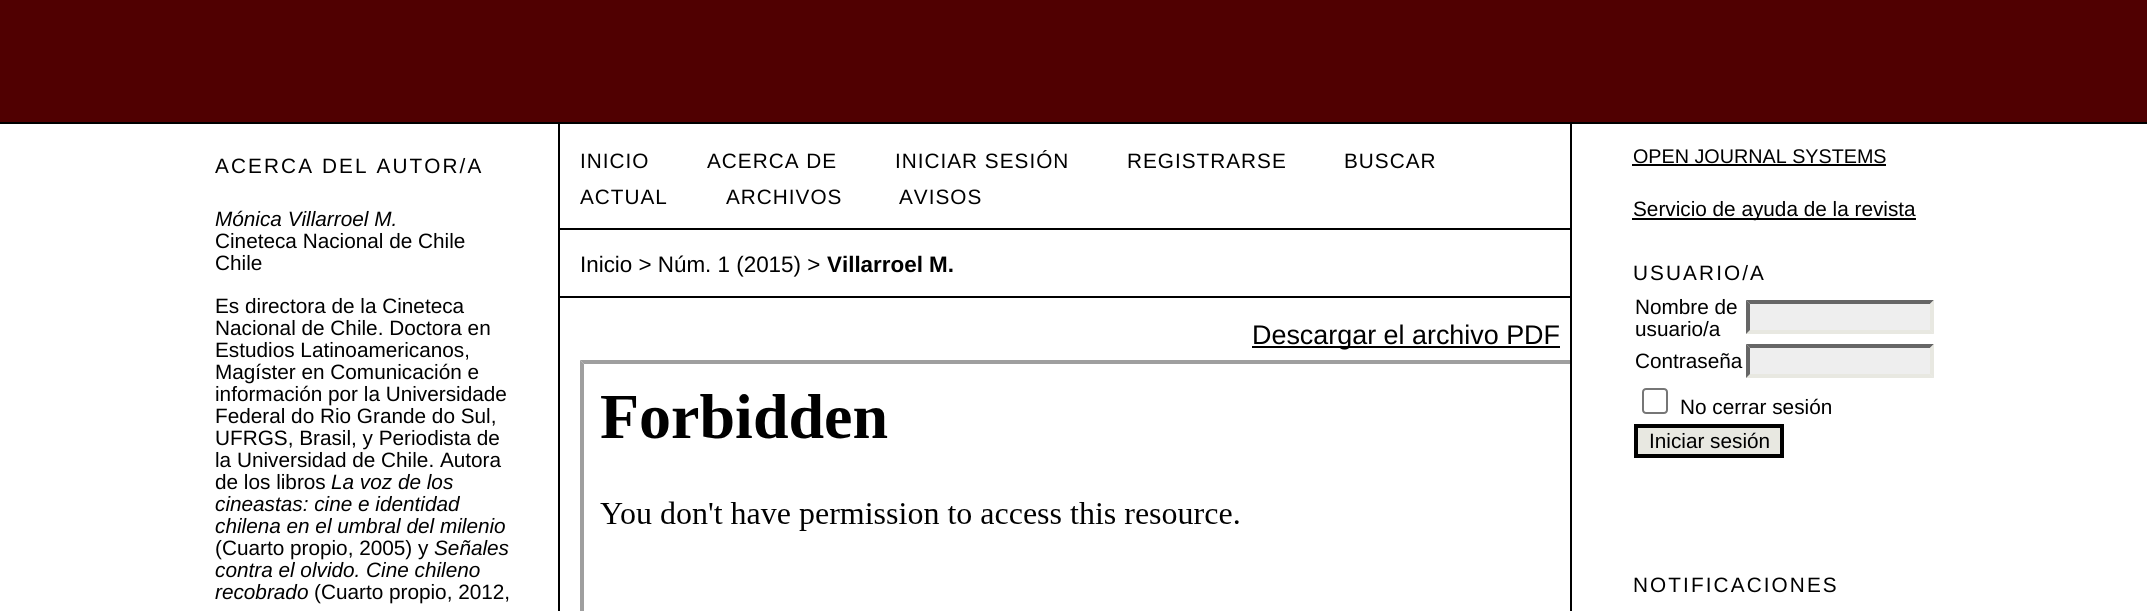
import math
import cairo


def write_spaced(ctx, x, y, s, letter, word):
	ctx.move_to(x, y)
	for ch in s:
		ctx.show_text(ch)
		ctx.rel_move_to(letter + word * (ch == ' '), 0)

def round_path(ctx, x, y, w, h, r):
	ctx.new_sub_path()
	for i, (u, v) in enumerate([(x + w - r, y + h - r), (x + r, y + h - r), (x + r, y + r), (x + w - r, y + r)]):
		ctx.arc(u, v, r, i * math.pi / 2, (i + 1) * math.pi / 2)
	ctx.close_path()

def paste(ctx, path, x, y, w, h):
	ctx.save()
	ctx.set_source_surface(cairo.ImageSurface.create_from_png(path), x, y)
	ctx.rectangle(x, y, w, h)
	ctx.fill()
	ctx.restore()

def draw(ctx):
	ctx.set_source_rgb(1, 1, 1)
	ctx.paint()
	ctx.set_source_rgb(0.314, 0, 0.004)
	ctx.rectangle(0, 0, 2147, 122)
	ctx.fill()
	ctx.set_source_rgb(0, 0, 0)
	ctx.rectangle(0, 122, 2147, 2)
	ctx.fill()
	ctx.select_font_face('Liberation Sans')
	ctx.set_font_size(20.75)
	write_spaced(ctx, 215, 173, 'ACERCA DEL AUTOR/A', 2.1, 0)
	ctx.select_font_face('Liberation Sans', cairo.FONT_SLANT_ITALIC)
	ctx.move_to(215, 226)
	ctx.show_text('Mónica Villarroel M.')
	ctx.select_font_face('Liberation Sans')
	for x, y, s in [
		(215, 248, 'Cineteca Nacional de Chile'),
		(215, 270, 'Chile'),
		(215, 313, 'Es directora de la Cineteca'),
		(215, 335, 'Nacional de Chile. Doctora en'),
		(215, 357, 'Estudios Latinoamericanos,'),
		(215, 379, 'Magíster en Comunicación e'),
		(215, 401, 'información por la Universidade'),
		(215, 423, 'Federal do Rio Grande do Sul,'),
		(215, 445, 'UFRGS, Brasil, y Periodista de'),
		(215, 467, 'la Universidad de Chile. Autora'),
		(215, 489, 'de los libros'),
	]:
		ctx.move_to(x, y)
		ctx.show_text(s)
	ctx.select_font_face('Liberation Sans', cairo.FONT_SLANT_ITALIC)
	for x, y, s in [
		(331, 489, 'La voz de los'),
		(215, 511, 'cineastas: cine e identidad'),
		(215, 533, 'chilena en el umbral del milenio'),
	]:
		ctx.move_to(x, y)
		ctx.show_text(s)
	ctx.select_font_face('Liberation Sans')
	ctx.move_to(215, 555)
	ctx.show_text('(Cuarto propio, 2005) y')
	ctx.select_font_face('Liberation Sans', cairo.FONT_SLANT_ITALIC)
	for x, y, s in [
		(434, 555, 'Señales'),
		(215, 577, 'contra el olvido. Cine chileno'),
		(215, 599, 'recobrado'),
	]:
		ctx.move_to(x, y)
		ctx.show_text(s)
	ctx.select_font_face('Liberation Sans')
	ctx.move_to(314, 599)
	ctx.show_text('(Cuarto propio, 2012,')
	ctx.set_font_size(19.75)
	ctx.move_to(1633, 163)
	ctx.show_text('OPEN JOURNAL SYSTEMS')
	ctx.rectangle(1632, 164, 254, 2)
	ctx.fill()
	ctx.rectangle(1632, 218, 284, 2)
	ctx.fill()
	ctx.set_font_size(20.75)
	ctx.move_to(1633, 216)
	ctx.show_text('Servicio de ayuda de la revista')
	write_spaced(ctx, 1633, 280, 'USUARIO/A', 2.1, 0)
	ctx.move_to(1635, 314)
	ctx.show_text('Nombre de')
	ctx.move_to(1635, 336)
	ctx.show_text('usuario/a')
	ctx.set_source_rgb(0.933, 0.933, 0.933)
	ctx.rectangle(1746, 300, 188, 34)
	ctx.fill()
	ctx.set_source_rgb(0.4, 0.4, 0.4)
	ctx.new_path()
	ctx.move_to(1746, 300)
	ctx.line_to(1934, 300)
	ctx.line_to(1930, 304)
	ctx.line_to(1750, 304)
	ctx.close_path()
	ctx.fill()
	ctx.set_source_rgb(0.91, 0.91, 0.882)
	ctx.new_path()
	ctx.move_to(1934, 300)
	ctx.line_to(1934, 334)
	ctx.line_to(1930, 330)
	ctx.line_to(1930, 304)
	ctx.close_path()
	ctx.fill()
	ctx.new_path()
	ctx.move_to(1934, 334)
	ctx.line_to(1746, 334)
	ctx.line_to(1750, 330)
	ctx.line_to(1930, 330)
	ctx.close_path()
	ctx.fill()
	ctx.set_source_rgb(0.4, 0.4, 0.4)
	ctx.new_path()
	ctx.move_to(1746, 334)
	ctx.line_to(1746, 300)
	ctx.line_to(1750, 304)
	ctx.line_to(1750, 330)
	ctx.close_path()
	ctx.fill()
	ctx.set_source_rgb(0, 0, 0)
	ctx.move_to(1635, 368)
	ctx.show_text('Contraseña')
	ctx.set_source_rgb(0.933, 0.933, 0.933)
	ctx.rectangle(1746, 344, 188, 34)
	ctx.fill()
	ctx.set_source_rgb(0.4, 0.4, 0.4)
	ctx.new_path()
	ctx.move_to(1746, 344)
	ctx.line_to(1934, 344)
	ctx.line_to(1930, 348)
	ctx.line_to(1750, 348)
	ctx.close_path()
	ctx.fill()
	ctx.set_source_rgb(0.91, 0.91, 0.882)
	ctx.new_path()
	ctx.move_to(1934, 344)
	ctx.line_to(1934, 378)
	ctx.line_to(1930, 374)
	ctx.line_to(1930, 348)
	ctx.close_path()
	ctx.fill()
	ctx.new_path()
	ctx.move_to(1934, 378)
	ctx.line_to(1746, 378)
	ctx.line_to(1750, 374)
	ctx.line_to(1930, 374)
	ctx.close_path()
	ctx.fill()
	ctx.set_source_rgb(0.4, 0.4, 0.4)
	ctx.new_path()
	ctx.move_to(1746, 378)
	ctx.line_to(1746, 344)
	ctx.line_to(1750, 348)
	ctx.line_to(1750, 374)
	ctx.close_path()
	ctx.fill()
	round_path(ctx, 1643, 389, 24, 24, 3)
	ctx.set_source_rgb(0.463, 0.463, 0.463)
	ctx.stroke()
	ctx.set_source_rgb(0, 0, 0)
	ctx.move_to(1680, 414)
	ctx.show_text('No cerrar sesión')
	ctx.set_source_rgb(0.91, 0.91, 0.882)
	ctx.rectangle(1636, 426, 146, 30)
	ctx.fill_preserve()
	ctx.set_source_rgb(0, 0, 0)
	ctx.set_line_width(4)
	ctx.stroke()
	ctx.move_to(1649, 448)
	ctx.show_text('Iniciar sesión')
	write_spaced(ctx, 1633, 592, 'NOTIFICACIONES', 2.1, 0)
	ctx.rectangle(1570, 124, 2, 487)
	ctx.rectangle(558, 124, 2, 487)
	ctx.rectangle(560, 228, 1010, 2)
	ctx.fill()
	for x, y, s in [
		(580, 168, 'INICIO'),
		(707, 168, 'ACERCA DE'),
		(895, 168, 'INICIAR SESIÓN'),
		(1127, 168, 'REGISTRARSE'),
		(1344, 168, 'BUSCAR'),
		(580, 204, 'ACTUAL'),
		(726, 204, 'ARCHIVOS'),
		(899, 204, 'AVISOS'),
	]:
		write_spaced(ctx, x, y, s, 1, 0)
	ctx.rectangle(560, 296, 1010, 2)
	ctx.fill()
	ctx.set_font_size(22.4)
	ctx.move_to(580, 272)
	ctx.show_text('Inicio > Núm. 1 (2015) >')
	ctx.select_font_face('Liberation Sans', cairo.FONT_SLANT_NORMAL, cairo.FONT_WEIGHT_BOLD)
	ctx.move_to(827, 272)
	ctx.show_text('Villarroel M.')
	ctx.rectangle(1252, 346, 308, 2)
	ctx.fill()
	ctx.select_font_face('Liberation Sans')
	ctx.set_font_size(26.9)
	ctx.move_to(1252, 344)
	ctx.show_text('Descargar el archivo PDF')
	ctx.save()
	ctx.rectangle(560, 124, 1010, 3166)
	ctx.clip()
	ctx.set_source_rgb(0.624, 0.624, 0.624)
	ctx.new_path()
	ctx.move_to(580, 360)
	ctx.line_to(1578, 360)
	ctx.line_to(1574, 364)
	ctx.line_to(584, 364)
	ctx.close_path()
	ctx.fill()
	ctx.restore()
	ctx.set_source_rgb(0.624, 0.624, 0.624)
	ctx.new_path()
	ctx.move_to(580, 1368)
	ctx.line_to(580, 360)
	ctx.line_to(584, 364)
	ctx.line_to(584, 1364)
	ctx.close_path()
	ctx.fill()
	paste(ctx, 'media/1.png', 600, 394, 639, 137)


surface = cairo.ImageSurface(cairo.FORMAT_RGB24, 2147, 611)
ctx = cairo.Context(surface)
options = cairo.FontOptions()
options.set_hint_metrics(cairo.HINT_METRICS_OFF)
options.set_hint_style(cairo.HINT_STYLE_NONE)
ctx.set_font_options(options)
ctx.set_miter_limit(4)
draw(ctx)
surface.write_to_png('image.png')
